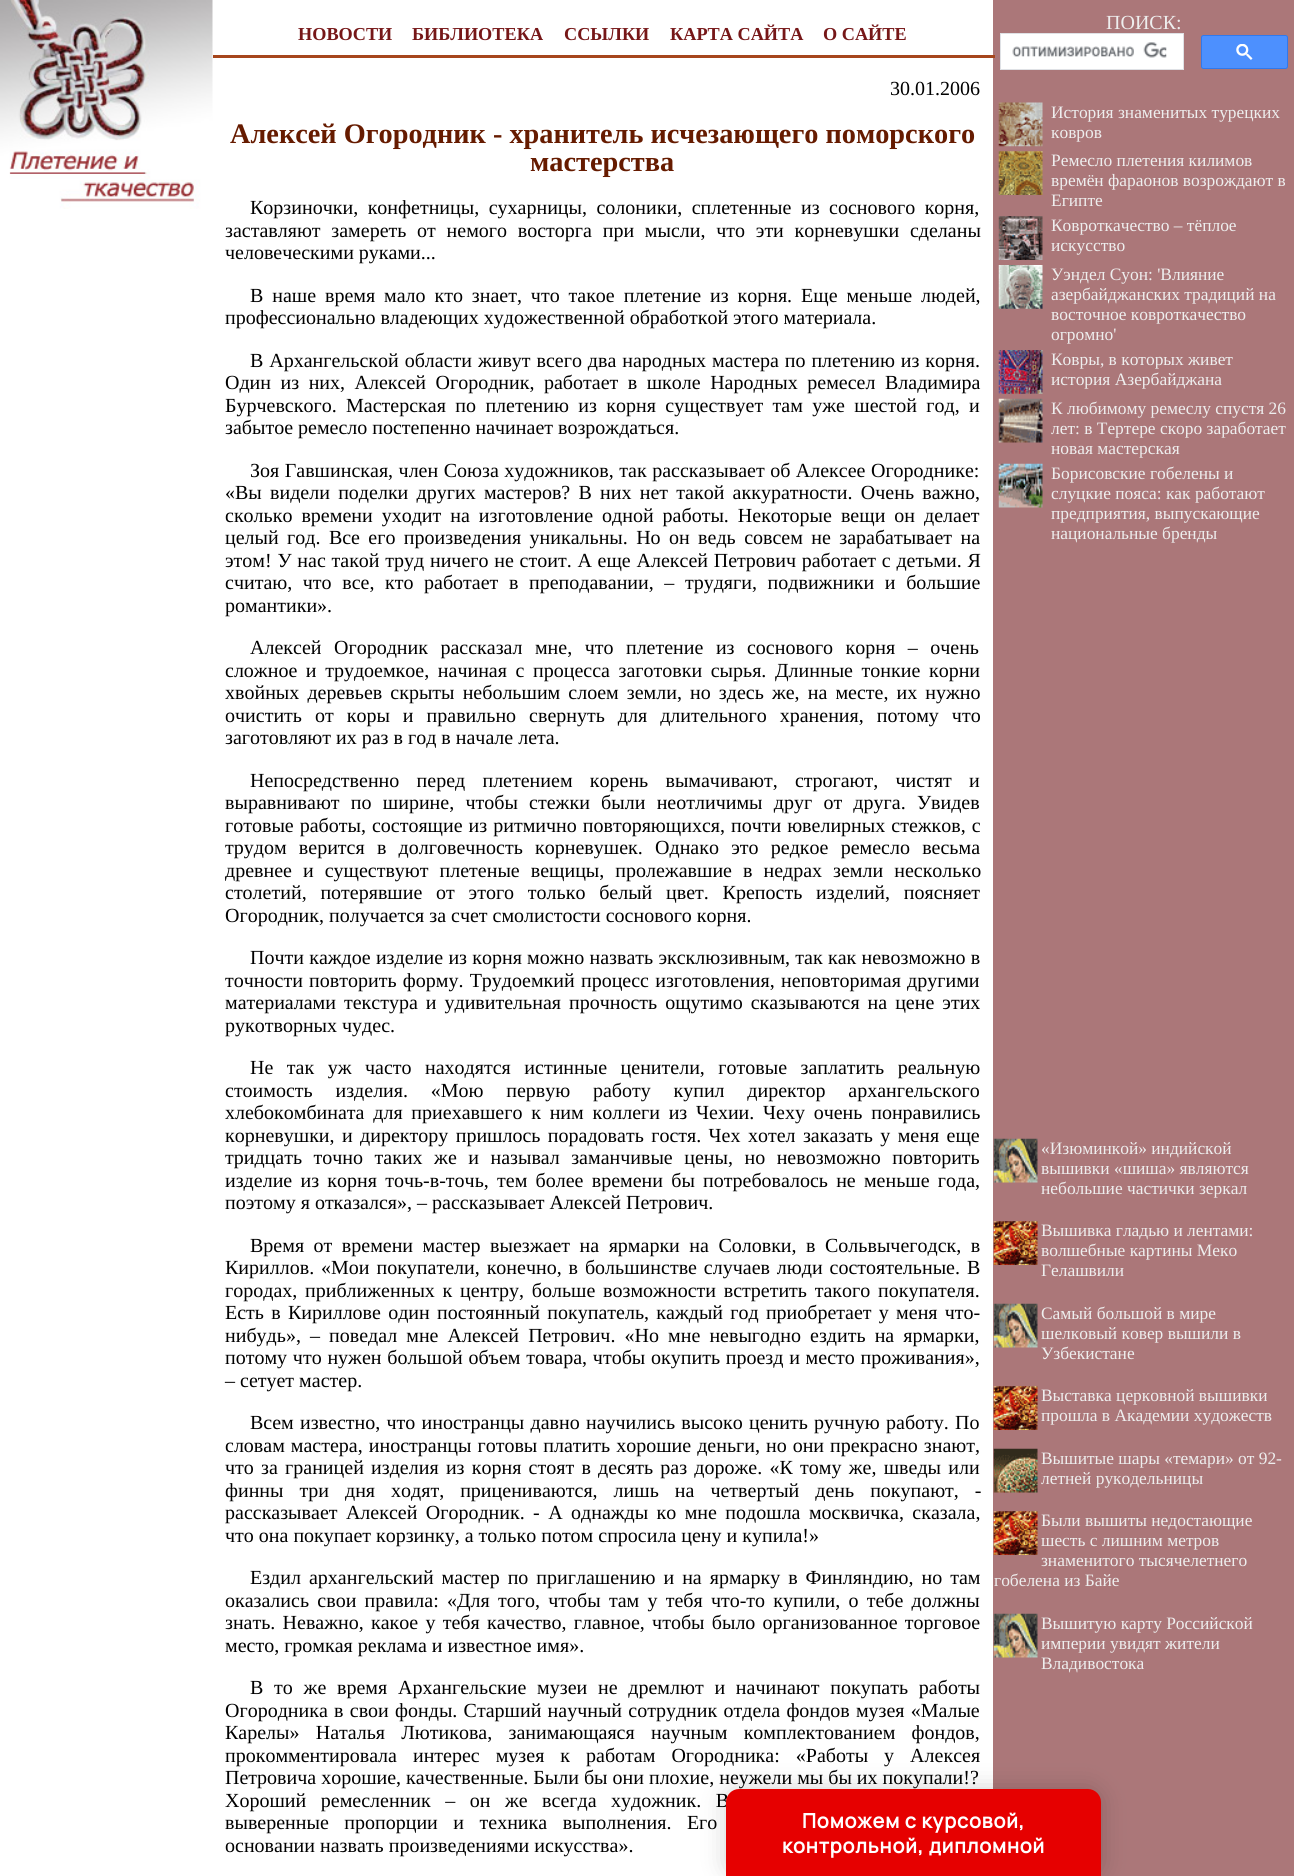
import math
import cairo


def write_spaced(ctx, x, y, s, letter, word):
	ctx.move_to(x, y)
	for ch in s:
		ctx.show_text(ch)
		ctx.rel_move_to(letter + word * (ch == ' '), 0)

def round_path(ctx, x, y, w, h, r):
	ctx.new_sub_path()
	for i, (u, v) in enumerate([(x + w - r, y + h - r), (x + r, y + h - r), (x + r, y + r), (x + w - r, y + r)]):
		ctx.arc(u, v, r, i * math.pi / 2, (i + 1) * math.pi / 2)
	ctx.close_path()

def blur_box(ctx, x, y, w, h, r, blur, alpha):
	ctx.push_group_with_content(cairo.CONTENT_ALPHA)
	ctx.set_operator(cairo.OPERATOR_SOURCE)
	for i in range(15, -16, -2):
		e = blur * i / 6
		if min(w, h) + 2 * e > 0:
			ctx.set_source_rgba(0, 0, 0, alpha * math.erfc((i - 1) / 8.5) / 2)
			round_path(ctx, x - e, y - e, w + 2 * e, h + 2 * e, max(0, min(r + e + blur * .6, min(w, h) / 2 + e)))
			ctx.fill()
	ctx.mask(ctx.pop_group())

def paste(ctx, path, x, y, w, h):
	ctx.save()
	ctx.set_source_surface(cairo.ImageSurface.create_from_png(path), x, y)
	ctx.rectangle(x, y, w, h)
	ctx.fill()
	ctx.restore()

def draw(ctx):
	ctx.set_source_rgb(1, 1, 1)
	ctx.paint()
	paste(ctx, 'media/1.png', 0, 0, 213, 209)
	ctx.select_font_face('Liberation Serif', cairo.FONT_SLANT_NORMAL, cairo.FONT_WEIGHT_BOLD)
	ctx.set_font_size(18.25)
	ctx.set_source_rgb(0.463, 0.09, 0.094)
	for x, y, s in [
		(298, 40, 'НОВОСТИ'),
		(412, 40, 'БИБЛИОТЕКА'),
		(564, 40, 'ССЫЛКИ'),
		(670, 40, 'КАРТА САЙТА'),
		(823, 40, 'О САЙТЕ'),
	]:
		ctx.move_to(x, y)
		ctx.show_text(s)
	ctx.set_source_rgb(0.671, 0.467, 0.475)
	ctx.rectangle(993, 0, 301, 1876)
	ctx.fill()
	ctx.set_source_rgb(0.651, 0.275, 0.11)
	ctx.rectangle(213, 55, 782, 3)
	ctx.fill()
	ctx.select_font_face('Liberation Serif')
	ctx.set_font_size(20)
	ctx.set_source_rgb(0, 0, 0)
	ctx.move_to(890, 95)
	ctx.show_text('30.01.2006')
	ctx.select_font_face('Liberation Serif', cairo.FONT_SLANT_NORMAL, cairo.FONT_WEIGHT_BOLD)
	ctx.set_font_size(28.3)
	ctx.set_source_rgb(0.4, 0.106, 0)
	ctx.move_to(230, 143)
	ctx.show_text('Алексей Огородник - хранитель исчезающего поморского')
	ctx.move_to(530, 171)
	ctx.show_text('мастерства')
	ctx.select_font_face('Liberation Serif')
	ctx.set_font_size(20)
	ctx.set_source_rgb(0, 0, 0)
	write_spaced(ctx, 250, 214, 'Корзиночки, конфетницы, сухарницы, солоники, сплетенные из соснового корня,', 0, 4.5)
	write_spaced(ctx, 225, 237, 'заставляют замереть от немого восторга при мысли, что эти корневушки сделаны', 0, 5.75)
	ctx.move_to(225, 259)
	ctx.show_text('человеческими руками...')
	write_spaced(ctx, 250, 302, 'В наше время мало кто знает, что такое плетение из корня. Еще меньше людей,', 0, 3.9)
	ctx.move_to(225, 324)
	ctx.show_text('профессионально владеющих художественной обработкой этого материала.')
	write_spaced(ctx, 250, 367, 'В Архангельской области живут всего два народных мастера по плетению из корня.', 0, 0.9)
	write_spaced(ctx, 225, 389, 'Один из них, Алексей Огородник, работает в школе Народных ремесел Владимира', 0, 4.5)
	write_spaced(ctx, 225, 412, 'Бурчевского. Мастерская по плетению из корня существует там уже шестой год, и', 0, 4.4)
	ctx.move_to(225, 434)
	ctx.show_text('забытое ремесло постепенно начинает возрождаться.')
	write_spaced(ctx, 250, 477, 'Зоя Гавшинская, член Союза художников, так рассказывает об Алексее Огороднике:', 0, 0.5)
	write_spaced(ctx, 225, 499, '«Вы видели поделки других мастеров? В них нет такой аккуратности. Очень важно,', 0, 3.25)
	write_spaced(ctx, 225, 522, 'сколько времени уходит на изготовление одной работы. Некоторые вещи он делает', 0, 4)
	write_spaced(ctx, 225, 544, 'целый год. Все его произведения уникальны. Но он ведь совсем не зарабатывает на', 0, 3.4)
	write_spaced(ctx, 225, 567, 'этом! У нас такой труд ничего не стоит. А еще Алексей Петрович работает с детьми. Я', 0, 0.75)
	write_spaced(ctx, 225, 589, 'считаю, что все, кто работает в преподавании, – трудяги, подвижники и большие', 0, 5.6)
	ctx.move_to(225, 612)
	ctx.show_text('романтики».')
	write_spaced(ctx, 250, 654, 'Алексей Огородник рассказал мне, что плетение из соснового корня – очень', 0, 7.5)
	write_spaced(ctx, 225, 677, 'сложное и трудоемкое, начиная с процесса заготовки сырья. Длинные тонкие корни', 0, 3.6)
	write_spaced(ctx, 225, 699, 'хвойных деревьев скрыты небольшим слоем земли, но здесь же, на месте, их нужно', 0, 3.1)
	write_spaced(ctx, 225, 722, 'очистить от коры и правильно свернуть для длительного хранения, потому что', 0, 8)
	ctx.move_to(225, 744)
	ctx.show_text('заготовляют их раз в год в начале лета.')
	write_spaced(ctx, 250, 787, 'Непосредственно перед плетением корень вымачивают, строгают, чистят и', 0, 12.25)
	write_spaced(ctx, 225, 809, 'выравнивают по ширине, чтобы стежки были неотличимы друг от друга. Увидев', 0, 6.25)
	write_spaced(ctx, 225, 832, 'готовые работы, состоящие из ритмично повторяющихся, почти ювелирных стежков, с', 0, 1)
	write_spaced(ctx, 225, 854, 'трудом верится в долговечность корневушек. Однако это редкое ремесло весьма', 0, 7.25)
	write_spaced(ctx, 225, 877, 'древнее и существуют плетеные вещицы, пролежавшие в недрах земли несколько', 0, 6)
	write_spaced(ctx, 225, 899, 'столетий, потерявшие от этого только белый цвет. Крепость изделий, поясняет', 0, 8.75)
	ctx.move_to(225, 922)
	ctx.show_text('Огородник, получается за счет смолистости соснового корня.')
	write_spaced(ctx, 250, 964, 'Почти каждое изделие из корня можно назвать эксклюзивным, так как невозможно в', 0, 0.25)
	write_spaced(ctx, 225, 987, 'точности повторить форму. Трудоемкий процесс изготовления, неповторимая другими', 0, 1.25)
	write_spaced(ctx, 225, 1009, 'материалами текстура и удивительная прочность ощутимо сказываются на цене этих', 0, 3)
	ctx.move_to(225, 1032)
	ctx.show_text('рукотворных чудес.')
	write_spaced(ctx, 250, 1074, 'Не так уж часто находятся истинные ценители, готовые заплатить реальную', 0, 8.5)
	write_spaced(ctx, 225, 1097, 'стоимость изделия. «Мою первую работу купил директор архангельского', 0, 17.75)
	write_spaced(ctx, 225, 1119, 'хлебокомбината для приехавшего к ним коллеги из Чехии. Чеху очень понравились', 0, 3.75)
	write_spaced(ctx, 225, 1142, 'корневушки, и директору пришлось порадовать гостя. Чех хотел заказать у меня еще', 0, 2.4)
	write_spaced(ctx, 225, 1164, 'тридцать точно таких же и называл заманчивые цены, но невозможно повторить', 0, 6.5)
	write_spaced(ctx, 225, 1187, 'изделие из корня точь-в-точь, тем более времени бы потребовалось не меньше года,', 0, 3.25)
	ctx.move_to(225, 1209)
	ctx.show_text('поэтому я отказался», – рассказывает Алексей Петрович.')
	write_spaced(ctx, 250, 1252, 'Время от времени мастер выезжает на ярмарки на Соловки, в Сольвычегодск, в', 0, 4.5)
	write_spaced(ctx, 225, 1274, 'Кириллов. «Мои покупатели, конечно, в большинстве случаев люди состоятельные. В', 0, 1.9)
	write_spaced(ctx, 225, 1297, 'городах, приближенных к центру, больше возможности встретить такого покупателя.', 0, 2.75)
	write_spaced(ctx, 225, 1319, 'Есть в Кириллове один постоянный покупатель, каждый год приобретает у меня что-', 0, 2.25)
	write_spaced(ctx, 225, 1342, 'нибудь», – поведал мне Алексей Петрович. «Но мне невыгодно ездить на ярмарки,', 0, 4.1)
	write_spaced(ctx, 225, 1364, 'потому что нужен большой объем товара, чтобы окупить проезд и место проживания»,', 0, 0.75)
	ctx.move_to(225, 1387)
	ctx.show_text('– сетует мастер.')
	write_spaced(ctx, 250, 1429, 'Всем известно, что иностранцы давно научились высоко ценить ручную работу. По', 0, 1.25)
	write_spaced(ctx, 225, 1452, 'словам мастера, иностранцы готовы платить хорошие деньги, но они прекрасно знают,', 0, 1)
	write_spaced(ctx, 225, 1474, 'что за границей изделия из корня стоят в десять раз дороже. «К тому же, шведы или', 0, 2.25)
	write_spaced(ctx, 225, 1497, 'финны три дня ходят, прицениваются, лишь на четвертый день покупают, -', 0, 11)
	write_spaced(ctx, 225, 1519, 'рассказывает Алексей Огородник. - А однажды ко мне подошла москвичка, сказала,', 0, 3.4)
	ctx.move_to(225, 1542)
	ctx.show_text('что она покупает корзинку, а только потом спросила цену и купила!»')
	write_spaced(ctx, 250, 1584, 'Ездил архангельский мастер по приглашению и на ярмарку в Финляндию, но там', 0, 3)
	write_spaced(ctx, 225, 1607, 'оказались свои правила: «Для того, чтобы там у тебя что-то купили, о тебе должны', 0, 3.25)
	write_spaced(ctx, 225, 1629, 'знать. Неважно, какое у тебя качество, главное, чтобы было организованное торговое', 0, 2.25)
	ctx.move_to(225, 1652)
	ctx.show_text('место, громкая реклама и известное имя».')
	write_spaced(ctx, 250, 1694, 'В то же время Архангельские музеи не дремлют и начинают покупать работы', 0, 5.75)
	write_spaced(ctx, 225, 1717, 'Огородника в свои фонды. Старший научный сотрудник отдела фондов музея «Малые', 0, 1.25)
	write_spaced(ctx, 225, 1739, 'Карелы» Наталья Лютикова, занимающаяся научным комплектованием фондов,', 0, 11.25)
	write_spaced(ctx, 225, 1762, 'прокомментировала интерес музея к работам Огородника: «Работы у Алексея', 0, 11)
	ctx.move_to(225, 1784)
	ctx.show_text('Петровича хорошие, качественные. Были бы они плохие, неужели мы бы их покупали!?')
	write_spaced(ctx, 225, 1807, 'Хороший ремесленник – он же всегда художник. В', 0, 9.5)
	write_spaced(ctx, 225, 1829, 'выверенные пропорции и техника выполнения. Его', 0, 10.5)
	ctx.move_to(225, 1852)
	ctx.show_text('основании назвать произведениями искусства».')
	ctx.set_source_rgb(0.933, 0.933, 0.933)
	ctx.move_to(1106, 29)
	ctx.show_text('ПОИСК:')
	ctx.set_source_rgb(1, 1, 1)
	ctx.rectangle(1000.5, 33.5, 183, 36)
	ctx.fill_preserve()
	ctx.set_source_rgb(0.875, 0.882, 0.898)
	ctx.set_line_width(1)
	ctx.stroke()
	paste(ctx, 'media/2.png', 1012, 42, 155, 16)
	ctx.set_source_rgb(0.302, 0.565, 0.996)
	round_path(ctx, 1201.5, 35.5, 86, 33, 2)
	ctx.fill_preserve()
	ctx.set_source_rgb(0.188, 0.475, 0.929)
	ctx.stroke()
	paste(ctx, 'media/3.png', 1236, 44, 17, 16)
	paste(ctx, 'media/4.png', 998, 102, 45, 45)
	ctx.set_font_size(17.4)
	ctx.set_source_rgb(0.933, 0.933, 0.933)
	ctx.move_to(1051, 118)
	ctx.show_text('История знаменитых турецких')
	ctx.move_to(1051, 138)
	ctx.show_text('ковров')
	paste(ctx, 'media/5.png', 998, 151, 45, 44)
	for x, y, s in [
		(1051, 166, 'Ремесло плетения килимов'),
		(1051, 186, 'времён фараонов возрождают в'),
		(1051, 206, 'Египте'),
	]:
		ctx.move_to(x, y)
		ctx.show_text(s)
	paste(ctx, 'media/6.png', 998, 216, 45, 44)
	ctx.move_to(1051, 231)
	ctx.show_text('Ковроткачество – тёплое')
	ctx.move_to(1051, 251)
	ctx.show_text('искусство')
	paste(ctx, 'media/7.png', 998, 265, 45, 44)
	for x, y, s in [
		(1051, 280, 'Уэндел Суон: \'Влияние'),
		(1051, 300, 'азербайджанских традиций на'),
		(1051, 320, 'восточное ковроткачество'),
		(1051, 340, 'огромно\''),
	]:
		ctx.move_to(x, y)
		ctx.show_text(s)
	paste(ctx, 'media/8.png', 998, 350, 45, 44)
	ctx.move_to(1051, 365)
	ctx.show_text('Ковры, в которых живет')
	ctx.move_to(1051, 385)
	ctx.show_text('история Азербайджана')
	paste(ctx, 'media/9.png', 998, 398, 45, 45)
	for x, y, s in [
		(1051, 414, 'К любимому ремеслу спустя 26'),
		(1051, 434, 'лет: в Тертере скоро заработает'),
		(1051, 454, 'новая мастерская'),
	]:
		ctx.move_to(x, y)
		ctx.show_text(s)
	paste(ctx, 'media/10.png', 998, 463, 45, 45)
	for x, y, s in [
		(1051, 479, 'Борисовские гобелены и'),
		(1051, 499, 'слуцкие пояса: как работают'),
		(1051, 519, 'предприятия, выпускающие'),
		(1051, 539, 'национальные бренды'),
	]:
		ctx.move_to(x, y)
		ctx.show_text(s)
	paste(ctx, 'media/11.png', 993, 1138, 45, 45)
	for x, y, s in [
		(1041, 1154, '«Изюминкой» индийской'),
		(1041, 1174, 'вышивки «шиша» являются'),
		(1041, 1194, 'небольшие частички зеркал'),
	]:
		ctx.move_to(x, y)
		ctx.show_text(s)
	paste(ctx, 'media/12.png', 993, 1221, 45, 44)
	for x, y, s in [
		(1041, 1236, 'Вышивка гладью и лентами:'),
		(1041, 1256, 'волшебные картины Меко'),
		(1041, 1276, 'Гелашвили'),
	]:
		ctx.move_to(x, y)
		ctx.show_text(s)
	paste(ctx, 'media/11.png', 993, 1303, 45, 45)
	for x, y, s in [
		(1041, 1319, 'Самый большой в мире'),
		(1041, 1339, 'шелковый ковер вышили в'),
		(1041, 1359, 'Узбекистане'),
	]:
		ctx.move_to(x, y)
		ctx.show_text(s)
	paste(ctx, 'media/12.png', 993, 1386, 45, 44)
	ctx.move_to(1041, 1401)
	ctx.show_text('Выставка церковной вышивки')
	ctx.move_to(1041, 1421)
	ctx.show_text('прошла в Академии художеств')
	paste(ctx, 'media/13.png', 993, 1448, 45, 45)
	ctx.move_to(1041, 1464)
	ctx.show_text('Вышитые шары «темари» от 92-')
	ctx.move_to(1041, 1484)
	ctx.show_text('летней рукодельницы')
	paste(ctx, 'media/12.png', 993, 1511, 45, 44)
	for x, y, s in [
		(1041, 1526, 'Были вышиты недостающие'),
		(1041, 1546, 'шесть с лишним метров'),
		(1041, 1566, 'знаменитого тысячелетнего'),
		(994, 1586, 'гобелена из Байе'),
	]:
		ctx.move_to(x, y)
		ctx.show_text(s)
	paste(ctx, 'media/11.png', 993, 1613, 45, 45)
	for x, y, s in [
		(1041, 1629, 'Вышитую карту Российской'),
		(1041, 1649, 'империи увидят жители'),
		(1041, 1669, 'Владивостока'),
	]:
		ctx.move_to(x, y)
		ctx.show_text(s)
	ctx.set_source_rgb(0, 0, 0)
	blur_box(ctx, 726, 1789, 375, 87, 13, 12, 0.18)
	ctx.set_source_rgb(0.902, 0, 0)
	ctx.new_path()
	ctx.move_to(739, 1789)
	ctx.line_to(1088, 1789)
	ctx.curve_to(1095, 1789, 1101, 1795, 1101, 1802)
	ctx.line_to(1101, 1876)
	ctx.line_to(726, 1876)
	ctx.line_to(726, 1802)
	ctx.curve_to(726, 1795, 732, 1789, 739, 1789)
	ctx.close_path()
	ctx.fill()
	ctx.select_font_face('Manrope', cairo.FONT_SLANT_NORMAL, cairo.FONT_WEIGHT_BOLD)
	ctx.set_font_size(20)
	ctx.set_source_rgb(1, 1, 1)
	write_spaced(ctx, 802, 1828, 'Поможем с курсовой,', 0.8, 0)
	write_spaced(ctx, 782, 1853, 'контрольной, дипломной', 0.8, 0)


surface = cairo.ImageSurface(cairo.FORMAT_RGB24, 1294, 1876)
ctx = cairo.Context(surface)
options = cairo.FontOptions()
options.set_hint_metrics(cairo.HINT_METRICS_OFF)
options.set_hint_style(cairo.HINT_STYLE_NONE)
ctx.set_font_options(options)
ctx.set_miter_limit(4)
draw(ctx)
surface.write_to_png('image.png')
